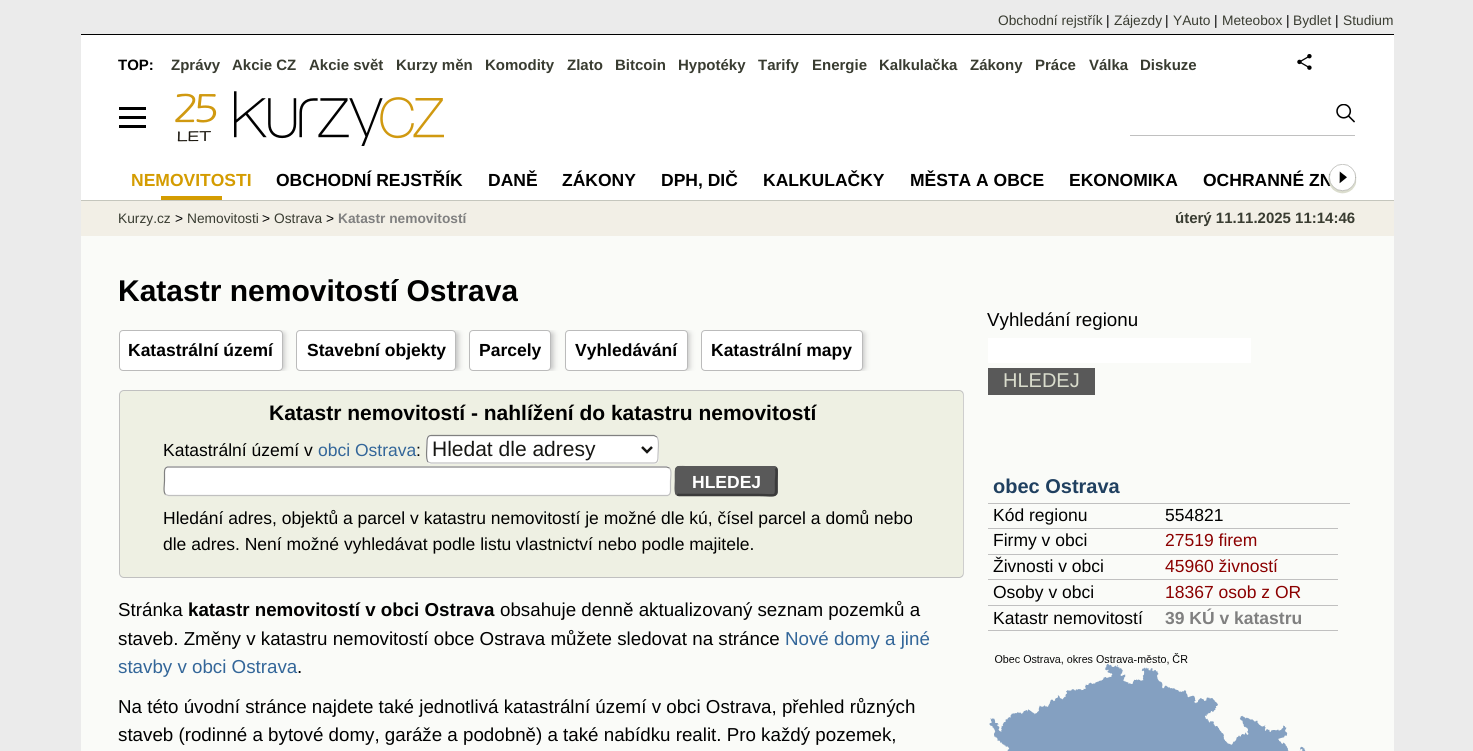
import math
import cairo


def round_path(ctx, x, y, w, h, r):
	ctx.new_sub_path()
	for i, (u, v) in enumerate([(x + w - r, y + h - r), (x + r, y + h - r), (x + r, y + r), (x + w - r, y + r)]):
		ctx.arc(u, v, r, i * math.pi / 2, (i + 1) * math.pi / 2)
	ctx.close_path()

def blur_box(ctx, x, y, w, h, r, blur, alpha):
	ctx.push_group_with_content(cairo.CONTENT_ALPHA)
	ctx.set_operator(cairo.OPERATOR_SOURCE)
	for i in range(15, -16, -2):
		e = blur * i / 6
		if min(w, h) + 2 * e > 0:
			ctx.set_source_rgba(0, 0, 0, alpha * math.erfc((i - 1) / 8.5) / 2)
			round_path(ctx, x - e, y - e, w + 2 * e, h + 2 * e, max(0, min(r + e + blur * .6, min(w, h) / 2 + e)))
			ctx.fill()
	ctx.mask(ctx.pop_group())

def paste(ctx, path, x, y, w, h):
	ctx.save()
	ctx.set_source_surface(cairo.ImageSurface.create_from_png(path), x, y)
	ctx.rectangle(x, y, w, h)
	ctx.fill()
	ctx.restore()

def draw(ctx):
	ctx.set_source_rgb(0.918, 0.918, 0.918)
	ctx.paint()
	ctx.set_source_rgb(0.98, 0.984, 0.969)
	ctx.rectangle(81, 236, 1313, 515)
	ctx.fill()
	ctx.set_source_rgb(0, 0, 0)
	ctx.rectangle(81, 34, 1313, 1)
	ctx.fill()
	ctx.select_font_face('Liberation Sans')
	ctx.set_font_size(13.75)
	ctx.set_source_rgb(0.224, 0.235, 0.192)
	ctx.move_to(998, 25)
	ctx.show_text('Obchodní rejstřík')
	ctx.set_source_rgb(0, 0, 0)
	ctx.move_to(1106, 25)
	ctx.show_text('|')
	ctx.set_source_rgb(0.224, 0.235, 0.192)
	ctx.move_to(1114, 25)
	ctx.show_text('Zájezdy')
	ctx.set_source_rgb(0, 0, 0)
	ctx.move_to(1165, 25)
	ctx.show_text('|')
	ctx.set_source_rgb(0.224, 0.235, 0.192)
	ctx.move_to(1173, 25)
	ctx.show_text('YAuto')
	ctx.set_source_rgb(0, 0, 0)
	ctx.move_to(1214, 25)
	ctx.show_text('|')
	ctx.set_source_rgb(0.224, 0.235, 0.192)
	ctx.move_to(1222, 25)
	ctx.show_text('Meteobox')
	ctx.set_source_rgb(0, 0, 0)
	ctx.move_to(1286, 25)
	ctx.show_text('|')
	ctx.set_source_rgb(0.224, 0.235, 0.192)
	ctx.move_to(1293, 25)
	ctx.show_text('Bydlet')
	ctx.set_source_rgb(0, 0, 0)
	ctx.move_to(1335, 25)
	ctx.show_text('|')
	ctx.set_source_rgb(0.224, 0.235, 0.192)
	ctx.move_to(1343, 25)
	ctx.show_text('Studium')
	ctx.set_source_rgb(1, 1, 1)
	ctx.rectangle(81, 35, 1313, 165)
	ctx.fill()
	ctx.set_source_rgb(0, 0, 0)
	ctx.rectangle(119, 107, 27, 3)
	ctx.fill()
	paste(ctx, 'media/1.png', 175, 91, 269, 55)
	ctx.set_source_rgb(0.753, 0.753, 0.753)
	ctx.rectangle(1130, 135, 225, 1)
	ctx.fill()
	paste(ctx, 'media/2.png', 1336, 104, 19, 19)
	ctx.set_source_rgb(0, 0, 0)
	ctx.rectangle(119, 116, 27, 3)
	ctx.fill()
	ctx.rectangle(119, 125, 27, 3)
	ctx.fill()
	ctx.select_font_face('Liberation Sans', cairo.FONT_SLANT_NORMAL, cairo.FONT_WEIGHT_BOLD)
	ctx.set_font_size(15)
	ctx.move_to(118, 70)
	ctx.show_text('TOP:')
	ctx.set_source_rgb(0.224, 0.235, 0.192)
	for x, y, s in [
		(171, 70, 'Zprávy'),
		(232, 70, 'Akcie CZ'),
		(309, 70, 'Akcie svět'),
		(396, 70, 'Kurzy měn'),
		(485, 70, 'Komodity'),
		(567, 70, 'Zlato'),
		(615, 70, 'Bitcoin'),
		(678, 70, 'Hypotéky'),
		(758, 70, 'Tarify'),
		(812, 70, 'Energie'),
		(879, 70, 'Kalkulačka'),
		(970, 70, 'Zákony'),
		(1035, 70, 'Práce'),
		(1089, 70, 'Válka'),
		(1140, 70, 'Diskuze'),
	]:
		ctx.move_to(x, y)
		ctx.show_text(s)
	paste(ctx, 'media/3.png', 1297, 54, 15, 16)
	ctx.set_source_rgb(0.949, 0.937, 0.902)
	ctx.rectangle(81, 201, 1313, 35)
	ctx.fill()
	ctx.select_font_face('Liberation Sans')
	ctx.set_font_size(13.75)
	ctx.set_source_rgb(0.224, 0.235, 0.192)
	ctx.move_to(118, 223)
	ctx.show_text('Kurzy.cz')
	ctx.set_source_rgb(0, 0, 0)
	ctx.move_to(175, 223)
	ctx.show_text('>')
	ctx.set_source_rgb(0.224, 0.235, 0.192)
	ctx.move_to(187, 223)
	ctx.show_text('Nemovitosti')
	ctx.set_source_rgb(0, 0, 0)
	ctx.move_to(262, 223)
	ctx.show_text('>')
	ctx.set_source_rgb(0.224, 0.235, 0.192)
	ctx.move_to(274, 223)
	ctx.show_text('Ostrava')
	ctx.set_source_rgb(0, 0, 0)
	ctx.move_to(326, 223)
	ctx.show_text('>')
	ctx.select_font_face('Liberation Sans', cairo.FONT_SLANT_NORMAL, cairo.FONT_WEIGHT_BOLD)
	ctx.set_source_rgb(0.502, 0.502, 0.502)
	ctx.move_to(338, 223)
	ctx.show_text('Katastr nemovitostí')
	ctx.set_font_size(15)
	ctx.set_source_rgb(0.224, 0.235, 0.192)
	ctx.move_to(1175, 223)
	ctx.show_text('úterý 11.11.2025 11:14:46')
	ctx.set_font_size(30)
	ctx.set_source_rgb(0, 0, 0)
	ctx.move_to(118, 301)
	ctx.show_text('Katastr nemovitostí Ostrava')
	ctx.save()
	ctx.rectangle(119, 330, 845, 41)
	ctx.clip()
	ctx.set_source_rgb(0.733, 0.733, 0.733)
	blur_box(ctx, 125, 333, 159, 36, 1, 3, 1)
	ctx.restore()
	ctx.set_source_rgb(1, 1, 1)
	round_path(ctx, 119.5, 330.5, 163, 40, 3.5)
	ctx.fill_preserve()
	ctx.set_source_rgb(0.733, 0.733, 0.733)
	ctx.set_line_width(1)
	ctx.stroke()
	ctx.set_font_size(17.5)
	ctx.set_source_rgb(0, 0, 0)
	ctx.move_to(128, 356)
	ctx.show_text('Katastrální území')
	ctx.save()
	ctx.rectangle(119, 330, 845, 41)
	ctx.clip()
	ctx.set_source_rgb(0.733, 0.733, 0.733)
	blur_box(ctx, 303, 333, 155, 36, 1, 3, 1)
	ctx.restore()
	ctx.set_source_rgb(1, 1, 1)
	round_path(ctx, 296.5, 330.5, 159, 40, 3.5)
	ctx.fill_preserve()
	ctx.set_source_rgb(0.733, 0.733, 0.733)
	ctx.stroke()
	ctx.set_source_rgb(0, 0, 0)
	ctx.move_to(307, 356)
	ctx.show_text('Stavební objekty')
	ctx.save()
	ctx.rectangle(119, 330, 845, 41)
	ctx.clip()
	ctx.set_source_rgb(0.733, 0.733, 0.733)
	blur_box(ctx, 475, 333, 78, 36, 1, 3, 1)
	ctx.restore()
	ctx.set_source_rgb(1, 1, 1)
	round_path(ctx, 469.5, 330.5, 81, 40, 3.5)
	ctx.fill_preserve()
	ctx.set_source_rgb(0.733, 0.733, 0.733)
	ctx.stroke()
	ctx.set_source_rgb(0, 0, 0)
	ctx.move_to(479, 356)
	ctx.show_text('Parcely')
	ctx.save()
	ctx.rectangle(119, 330, 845, 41)
	ctx.clip()
	ctx.set_source_rgb(0.733, 0.733, 0.733)
	blur_box(ctx, 571, 333, 118, 36, 1, 3, 1)
	ctx.restore()
	ctx.set_source_rgb(1, 1, 1)
	round_path(ctx, 565.5, 330.5, 122, 40, 3.5)
	ctx.fill_preserve()
	ctx.set_source_rgb(0.733, 0.733, 0.733)
	ctx.stroke()
	ctx.set_source_rgb(0, 0, 0)
	ctx.move_to(575, 356)
	ctx.show_text('Vyhledávání')
	ctx.save()
	ctx.rectangle(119, 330, 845, 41)
	ctx.clip()
	ctx.set_source_rgb(0.733, 0.733, 0.733)
	blur_box(ctx, 708, 333, 156, 36, 1, 3, 1)
	ctx.restore()
	ctx.set_source_rgb(1, 1, 1)
	round_path(ctx, 701.5, 330.5, 161, 40, 3.5)
	ctx.fill_preserve()
	ctx.set_source_rgb(0.733, 0.733, 0.733)
	ctx.stroke()
	ctx.set_source_rgb(0, 0, 0)
	ctx.move_to(711, 356)
	ctx.show_text('Katastrální mapy')
	ctx.set_source_rgb(0.933, 0.941, 0.89)
	round_path(ctx, 119.5, 390.5, 844, 187, 4.5)
	ctx.fill_preserve()
	ctx.set_source_rgb(0.753, 0.753, 0.753)
	ctx.stroke()
	ctx.set_font_size(21)
	ctx.set_source_rgb(0, 0, 0)
	ctx.move_to(269, 420)
	ctx.show_text('Katastr nemovitostí - nahlížení do katastru nemovitostí')
	ctx.select_font_face('Liberation Sans')
	ctx.set_font_size(17.5)
	ctx.move_to(163, 456)
	ctx.show_text('Katastrální území v')
	ctx.set_source_rgb(0.2, 0.4, 0.6)
	ctx.move_to(318, 456)
	ctx.show_text('obci Ostrava')
	ctx.set_source_rgb(0, 0, 0)
	ctx.move_to(416, 456)
	ctx.show_text(':')
	ctx.set_source_rgb(1, 1, 1)
	round_path(ctx, 426, 435, 233, 29, 5)
	ctx.fill()
	ctx.new_path()
	ctx.move_to(657, 437)
	ctx.curve_to(659.5, 439.5, 658, 452, 658, 455.5)
	ctx.curve_to(658, 459, 658, 463, 654, 463)
	ctx.line_to(431, 463)
	ctx.line_to(428, 462)
	ctx.set_source_rgb(0.753, 0.753, 0.753)
	ctx.set_line_width(1.2)
	ctx.stroke()
	ctx.new_path()
	ctx.move_to(428, 462)
	ctx.curve_to(425.5, 459, 427, 447, 427, 443)
	ctx.curve_to(427, 440, 427, 435.5, 431, 435.5)
	ctx.line_to(654, 435.5)
	ctx.line_to(657, 437)
	ctx.set_source_rgb(0.502, 0.502, 0.502)
	ctx.stroke()
	ctx.new_path()
	ctx.move_to(642, 447)
	ctx.line_to(647, 452)
	ctx.line_to(652, 447)
	ctx.set_source_rgb(0.086, 0.086, 0.078)
	ctx.set_line_width(2.5)
	ctx.stroke()
	ctx.set_font_size(21)
	ctx.move_to(432, 456)
	ctx.show_text('Hledat dle adresy')
	ctx.set_source_rgb(1, 1, 1)
	round_path(ctx, 164, 466, 507, 30, 5)
	ctx.fill()
	ctx.new_path()
	ctx.move_to(669.5, 468)
	ctx.curve_to(672, 470.5, 670.5, 478, 670.5, 481)
	ctx.line_to(670.5, 488)
	ctx.curve_to(670.5, 491, 671, 494.5, 667.5, 495.5)
	ctx.line_to(168.5, 495.5)
	ctx.line_to(165.5, 494.5)
	ctx.set_source_rgb(0.753, 0.753, 0.753)
	ctx.set_line_width(1.2)
	ctx.stroke()
	ctx.new_path()
	ctx.move_to(165.5, 494.5)
	ctx.curve_to(163, 492, 164.5, 484.5, 164.5, 481)
	ctx.line_to(164.5, 474.5)
	ctx.curve_to(164.5, 471.5, 164, 468, 167.5, 467)
	ctx.line_to(666.5, 467)
	ctx.line_to(669.5, 468)
	ctx.set_source_rgb(0.502, 0.502, 0.502)
	ctx.stroke()
	ctx.set_source_rgb(0.349, 0.349, 0.349)
	round_path(ctx, 675, 466, 103, 30, 4)
	ctx.fill()
	ctx.new_path()
	ctx.move_to(775.5, 468)
	ctx.curve_to(777.5, 470, 776, 479, 776, 481)
	ctx.curve_to(776, 499, 778.5, 495, 758, 495)
	ctx.line_to(679, 495)
	ctx.line_to(677, 494.5)
	ctx.set_source_rgb(0.231, 0.231, 0.231)
	ctx.set_line_width(2.5)
	ctx.stroke()
	ctx.new_path()
	ctx.move_to(677, 494.5)
	ctx.curve_to(675, 492.5, 676, 483.5, 676, 481)
	ctx.curve_to(676, 463.5, 674, 467.5, 694.5, 467.5)
	ctx.line_to(774, 467.5)
	ctx.line_to(775.5, 468)
	ctx.set_source_rgb(0.349, 0.349, 0.349)
	ctx.stroke()
	ctx.select_font_face('Liberation Sans', cairo.FONT_SLANT_NORMAL, cairo.FONT_WEIGHT_BOLD)
	ctx.set_font_size(17.5)
	ctx.set_source_rgb(1, 1, 1)
	ctx.move_to(692, 488)
	ctx.show_text('HLEDEJ')
	ctx.select_font_face('Liberation Sans')
	ctx.set_source_rgb(0, 0, 0)
	ctx.move_to(163, 524)
	ctx.show_text('Hledání adres, objektů a parcel v katastru nemovitostí je možné dle kú, čísel parcel a domů nebo')
	ctx.move_to(163, 550)
	ctx.show_text('dle adres. Není možné vyhledávat podle listu vlastnictví nebo podle majitele.')
	ctx.set_font_size(18.75)
	ctx.move_to(118, 616)
	ctx.show_text('Stránka')
	ctx.select_font_face('Liberation Sans', cairo.FONT_SLANT_NORMAL, cairo.FONT_WEIGHT_BOLD)
	ctx.move_to(188, 616)
	ctx.show_text('katastr nemovitostí v obci Ostrava')
	ctx.select_font_face('Liberation Sans')
	ctx.move_to(500, 616)
	ctx.show_text('obsahuje denně aktualizovaný seznam pozemků a')
	ctx.move_to(118, 645)
	ctx.show_text('staveb. Změny v katastru nemovitostí obce Ostrava můžete sledovat na stránce')
	ctx.set_source_rgb(0.2, 0.4, 0.6)
	ctx.move_to(785, 645)
	ctx.show_text('Nové domy a jiné')
	ctx.move_to(118, 673)
	ctx.show_text('stavby v obci Ostrava')
	ctx.set_source_rgb(0, 0, 0)
	for x, y, s in [
		(297, 673, '.'),
		(118, 713, 'Na této úvodní stránce najdete také jednotlivá katastrální území v obci Ostrava, přehled různých'),
		(118, 741, 'staveb (rodinné a bytové domy, garáže a podobně) a také nabídku realit. Pro každý pozemek,'),
	]:
		ctx.move_to(x, y)
		ctx.show_text(s)
	ctx.set_source_rgba(0.984, 0.984, 0.969, 0.25)
	ctx.rectangle(963, 392, 1, 184)
	ctx.fill()
	ctx.set_source_rgb(0, 0, 0)
	ctx.move_to(987, 326)
	ctx.show_text('Vyhledání regionu')
	ctx.set_source_rgb(1, 1, 1)
	ctx.rectangle(988, 338, 263, 25)
	ctx.fill()
	ctx.set_source_rgb(0.349, 0.349, 0.349)
	ctx.rectangle(988, 368, 107, 27)
	ctx.fill()
	ctx.set_font_size(20)
	ctx.set_source_rgb(0.851, 0.863, 0.8)
	ctx.move_to(1003, 387)
	ctx.show_text('HLEDEJ')
	ctx.set_source_rgb(0.753, 0.753, 0.753)
	ctx.rectangle(988, 503, 362, 1)
	ctx.fill()
	ctx.select_font_face('Liberation Sans', cairo.FONT_SLANT_NORMAL, cairo.FONT_WEIGHT_BOLD)
	ctx.set_source_rgb(0.125, 0.251, 0.376)
	ctx.move_to(993, 493)
	ctx.show_text('obec Ostrava')
	ctx.set_source_rgb(0.753, 0.753, 0.753)
	ctx.rectangle(988, 528, 350, 1)
	ctx.fill()
	ctx.select_font_face('Liberation Sans')
	ctx.set_font_size(17.5)
	ctx.set_source_rgb(0, 0, 0)
	ctx.move_to(993, 521)
	ctx.show_text('Kód regionu')
	ctx.move_to(1165, 521)
	ctx.show_text('554821')
	ctx.set_source_rgb(0.753, 0.753, 0.753)
	ctx.rectangle(988, 554, 350, 1)
	ctx.fill()
	ctx.set_source_rgb(0, 0, 0)
	ctx.move_to(993, 546)
	ctx.show_text('Firmy v obci')
	ctx.set_source_rgb(0.545, 0, 0)
	ctx.move_to(1165, 546)
	ctx.show_text('27519 firem')
	ctx.set_source_rgb(0.753, 0.753, 0.753)
	ctx.rectangle(988, 579, 350, 1)
	ctx.fill()
	ctx.set_source_rgb(0, 0, 0)
	ctx.move_to(993, 572)
	ctx.show_text('Živnosti v obci')
	ctx.set_source_rgb(0.545, 0, 0)
	ctx.move_to(1165, 572)
	ctx.show_text('45960 živností')
	ctx.set_source_rgb(0.753, 0.753, 0.753)
	ctx.rectangle(988, 605, 350, 1)
	ctx.fill()
	ctx.set_source_rgb(0, 0, 0)
	ctx.move_to(993, 598)
	ctx.show_text('Osoby v obci')
	ctx.set_source_rgb(0.545, 0, 0)
	ctx.move_to(1165, 598)
	ctx.show_text('18367 osob z OR')
	ctx.set_source_rgb(0.753, 0.753, 0.753)
	ctx.rectangle(988, 630, 350, 1)
	ctx.fill()
	ctx.set_source_rgb(0, 0, 0)
	ctx.move_to(993, 624)
	ctx.show_text('Katastr nemovitostí')
	ctx.select_font_face('Liberation Sans', cairo.FONT_SLANT_NORMAL, cairo.FONT_WEIGHT_BOLD)
	ctx.set_source_rgb(0.502, 0.502, 0.502)
	ctx.move_to(1165, 624)
	ctx.show_text('39 KÚ v katastru')
	paste(ctx, 'media/4.png', 989, 653, 317, 98)
	ctx.set_source_rgb(0.773, 0.776, 0.741)
	ctx.rectangle(81, 200, 1313, 1)
	ctx.fill()
	ctx.set_source_rgb(0.831, 0.612, 0.004)
	ctx.rectangle(161, 196, 61, 4)
	ctx.fill()
	ctx.move_to(131, 186)
	ctx.show_text('NEMOVITOSTI')
	ctx.set_source_rgb(0, 0, 0)
	for x, y, s in [
		(276, 186, 'OBCHODNÍ REJSTŘÍK'),
		(488, 186, 'DANĚ'),
		(562, 186, 'ZÁKONY'),
		(661, 186, 'DPH, DIČ'),
		(763, 186, 'KALKULAČKY'),
		(910, 186, 'MĚSTA A OBCE'),
		(1069, 186, 'EKONOMIKA'),
		(1203, 186, 'OCHRANNÉ ZN'),
	]:
		ctx.move_to(x, y)
		ctx.show_text(s)
	paste(ctx, 'media/5.png', 1328, 164, 29, 30)


surface = cairo.ImageSurface(cairo.FORMAT_RGB24, 1473, 751)
ctx = cairo.Context(surface)
options = cairo.FontOptions()
options.set_hint_metrics(cairo.HINT_METRICS_OFF)
options.set_hint_style(cairo.HINT_STYLE_NONE)
ctx.set_font_options(options)
ctx.set_miter_limit(4)
draw(ctx)
surface.write_to_png('image.png')
